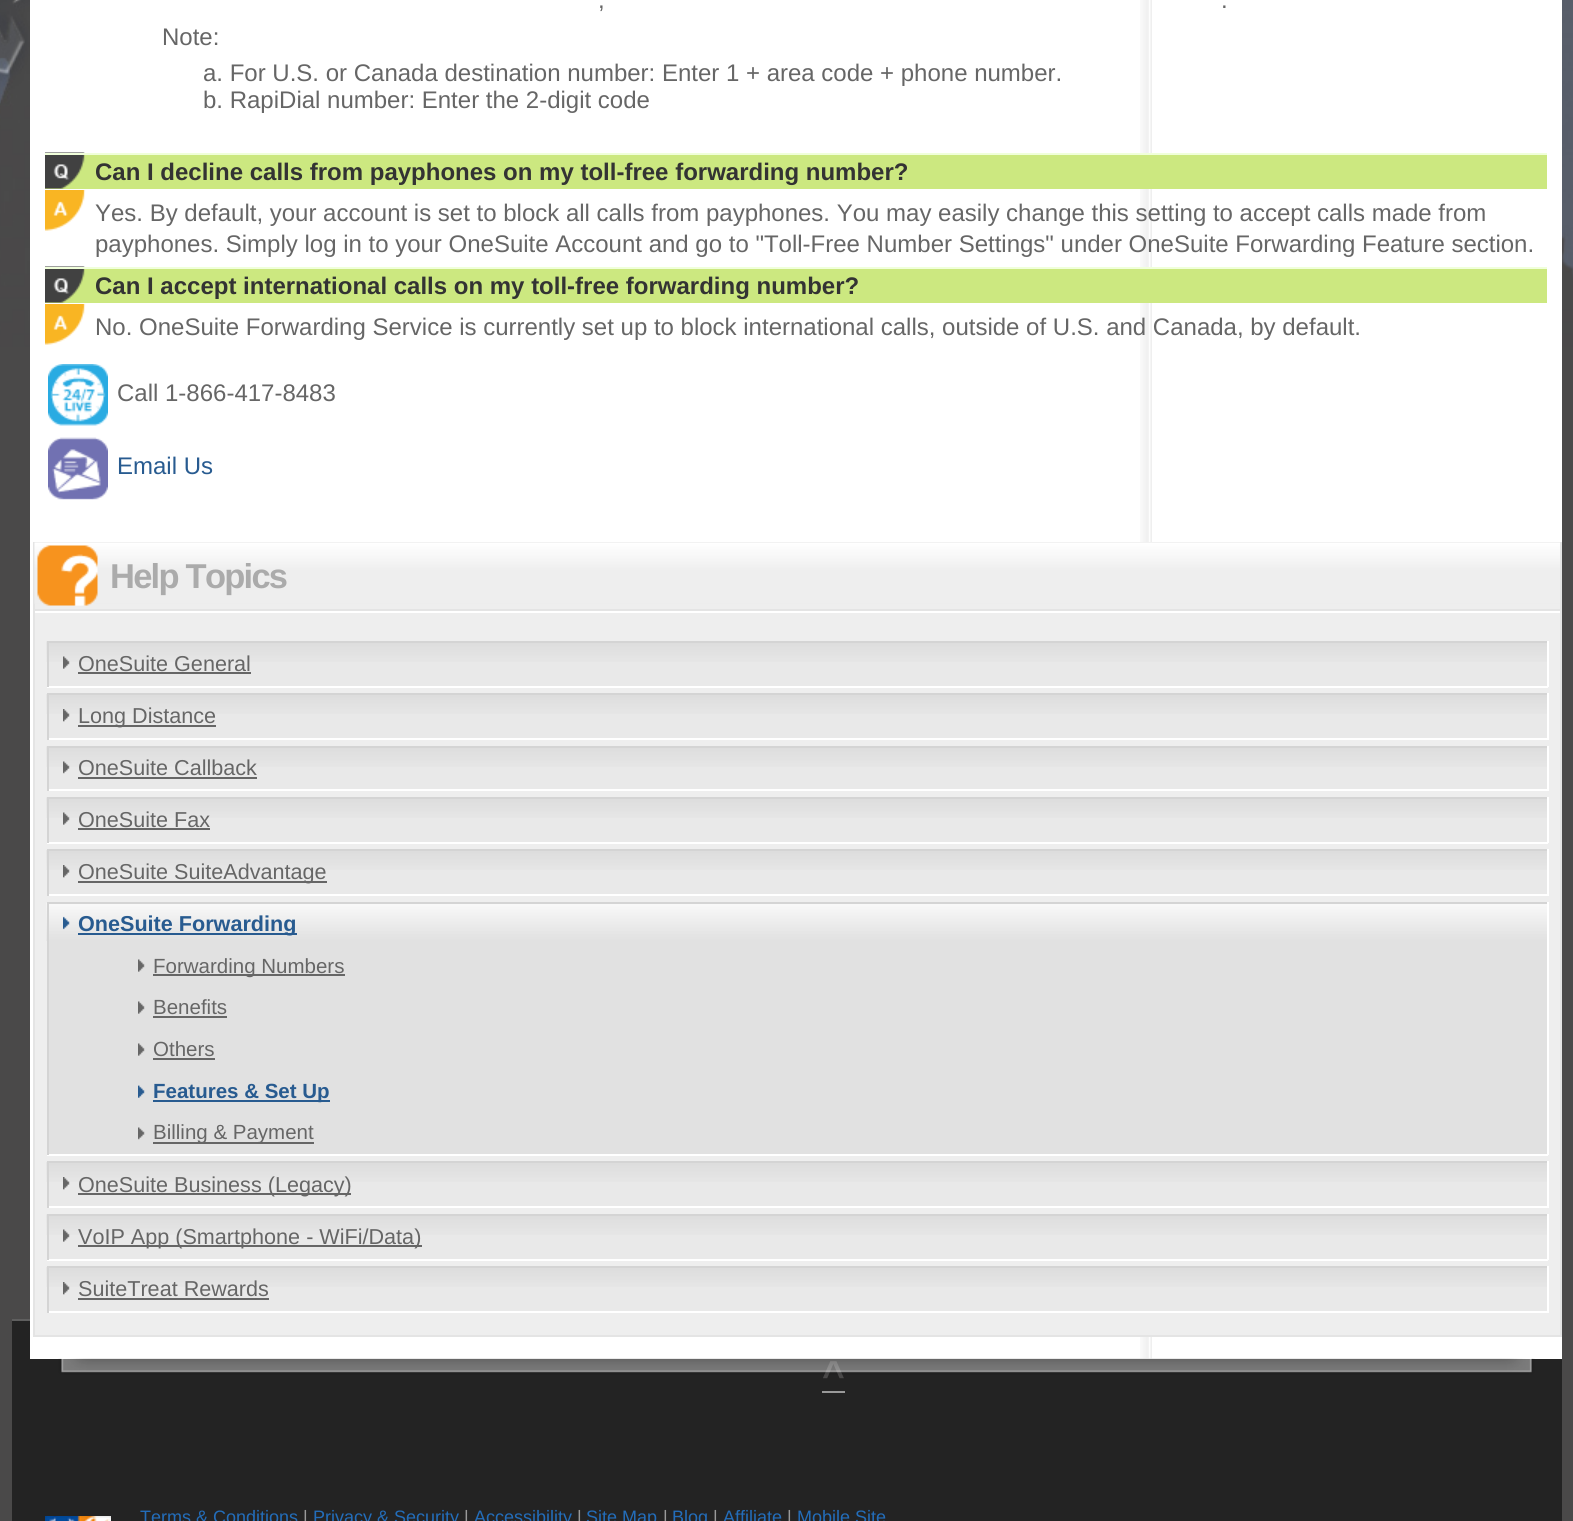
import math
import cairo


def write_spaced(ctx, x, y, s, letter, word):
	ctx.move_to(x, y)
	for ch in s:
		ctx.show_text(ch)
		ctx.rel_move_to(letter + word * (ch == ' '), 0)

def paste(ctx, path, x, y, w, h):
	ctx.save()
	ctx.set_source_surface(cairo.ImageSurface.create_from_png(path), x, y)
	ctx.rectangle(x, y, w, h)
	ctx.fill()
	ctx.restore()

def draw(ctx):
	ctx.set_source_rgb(0.29, 0.286, 0.286)
	ctx.paint()
	paste(ctx, 'media/1.png', 0, 0, 1573, 347)
	ctx.set_source_rgb(0.137, 0.137, 0.137)
	ctx.rectangle(12, 1321, 1550, 200)
	ctx.fill()
	ctx.set_source_rgb(1, 1, 1)
	ctx.rectangle(30, 0, 1532, 1359)
	ctx.fill()
	paste(ctx, 'media/2.png', 1140, 0, 12, 1359)
	ctx.select_font_face('Liberation Sans')
	ctx.set_font_size(24)
	ctx.set_source_rgb(0.4, 0.4, 0.4)
	for x, y, s in [
		(598, 8, ','),
		(1221, 8, '.'),
		(162, 45, 'Note:'),
		(203, 81, 'a. For U.S. or Canada destination number: Enter 1 + area code + phone number.'),
		(203, 108, 'b. RapiDial number: Enter the 2-digit code'),
	]:
		ctx.move_to(x, y)
		ctx.show_text(s)
	ctx.set_source_rgb(0.8, 0.91, 0.502)
	ctx.rectangle(45, 155, 1502, 34)
	ctx.fill()
	paste(ctx, 'media/3.png', 45, 152, 40, 37)
	ctx.set_source_rgb(0.941, 1, 0.855)
	ctx.rectangle(45, 153, 1502, 2)
	ctx.fill()
	ctx.select_font_face('Liberation Sans', cairo.FONT_SLANT_NORMAL, cairo.FONT_WEIGHT_BOLD)
	ctx.set_source_rgb(0.2, 0.2, 0.2)
	ctx.move_to(95, 180)
	ctx.show_text('Can I decline calls from payphones on my toll-free forwarding number?')
	paste(ctx, 'media/4.png', 45, 190, 41, 41)
	ctx.select_font_face('Liberation Sans')
	ctx.set_source_rgb(0.4, 0.4, 0.4)
	ctx.move_to(95, 221)
	ctx.show_text('Yes. By default, your account is set to block all calls from payphones. You may easily change this setting to accept calls made from')
	ctx.move_to(95, 252)
	ctx.show_text('payphones. Simply log in to your OneSuite Account and go to "Toll-Free Number Settings" under OneSuite Forwarding Feature section.')
	ctx.set_source_rgb(0.8, 0.91, 0.502)
	ctx.rectangle(45, 269, 1502, 34)
	ctx.fill()
	paste(ctx, 'media/3.png', 45, 266, 40, 37)
	ctx.set_source_rgb(0.941, 1, 0.855)
	ctx.rectangle(45, 267, 1502, 2)
	ctx.fill()
	ctx.select_font_face('Liberation Sans', cairo.FONT_SLANT_NORMAL, cairo.FONT_WEIGHT_BOLD)
	ctx.set_source_rgb(0.2, 0.2, 0.2)
	ctx.move_to(95, 294)
	ctx.show_text('Can I accept international calls on my toll-free forwarding number?')
	paste(ctx, 'media/4.png', 45, 304, 41, 41)
	ctx.select_font_face('Liberation Sans')
	ctx.set_source_rgb(0.4, 0.4, 0.4)
	ctx.move_to(95, 335)
	ctx.show_text('No. OneSuite Forwarding Service is currently set up to block international calls, outside of U.S. and Canada, by default.')
	paste(ctx, 'media/5.png', 48, 364, 60, 62)
	ctx.move_to(117, 401)
	ctx.show_text('Call 1-866-417-8483')
	paste(ctx, 'media/6.png', 48, 437, 60, 63)
	ctx.set_source_rgb(0.157, 0.357, 0.565)
	ctx.move_to(117, 474)
	ctx.show_text('Email Us')
	ctx.set_source_rgb(0.933, 0.933, 0.933)
	ctx.rectangle(35, 613, 1525, 722)
	ctx.fill()
	ctx.rectangle(34, 543, 1527, 793)
	ctx.set_source_rgb(0.894, 0.894, 0.894)
	ctx.stroke()
	ctx.set_source_rgb(0.933, 0.933, 0.933)
	ctx.rectangle(35, 603, 1525, 6)
	ctx.fill()
	paste(ctx, 'media/7.png', 34, 542, 1526, 62)
	ctx.set_source_rgb(1, 1, 1)
	ctx.rectangle(1140, 611, 12, 2)
	ctx.fill()
	paste(ctx, 'media/8.png', 37, 545, 61, 61)
	ctx.set_source_rgb(0.894, 0.894, 0.894)
	ctx.rectangle(35, 609, 1525, 2)
	ctx.fill()
	ctx.select_font_face('Liberation Sans', cairo.FONT_SLANT_NORMAL, cairo.FONT_WEIGHT_BOLD)
	ctx.set_font_size(34.5)
	ctx.set_source_rgb(0.671, 0.671, 0.671)
	write_spaced(ctx, 110, 588, 'Help Topics', -1.75, 0)
	ctx.set_source_rgb(0.914, 0.914, 0.914)
	ctx.rectangle(49, 662, 1498, 24)
	ctx.fill()
	paste(ctx, 'media/9.png', 46, 641, 1501, 21)
	ctx.set_source_rgb(0.831, 0.831, 0.831)
	ctx.rectangle(47, 641, 1501, 2)
	ctx.fill()
	ctx.set_source_rgb(1, 1, 1)
	ctx.rectangle(1547, 641, 2, 46)
	ctx.rectangle(47, 686, 1501, 2)
	ctx.fill()
	ctx.set_source_rgb(0.831, 0.831, 0.831)
	ctx.rectangle(47, 641, 2, 46)
	ctx.fill()
	paste(ctx, 'media/10.png', 63, 656, 7, 13)
	ctx.select_font_face('Liberation Sans')
	ctx.set_font_size(21.6)
	ctx.set_source_rgb(0.4, 0.4, 0.4)
	ctx.move_to(78, 671)
	ctx.show_text('OneSuite General')
	ctx.rectangle(78, 672, 173, 2)
	ctx.fill()
	ctx.set_source_rgb(0.914, 0.914, 0.914)
	ctx.rectangle(49, 714, 1498, 24)
	ctx.fill()
	paste(ctx, 'media/11.png', 46, 694, 1501, 20)
	ctx.set_source_rgb(0.831, 0.831, 0.831)
	ctx.rectangle(47, 693, 1501, 2)
	ctx.fill()
	ctx.set_source_rgb(1, 1, 1)
	ctx.rectangle(1547, 693, 2, 47)
	ctx.rectangle(47, 738, 1501, 2)
	ctx.fill()
	ctx.set_source_rgb(0.831, 0.831, 0.831)
	ctx.rectangle(47, 693, 2, 47)
	ctx.fill()
	paste(ctx, 'media/12.png', 63, 709, 7, 13)
	ctx.set_source_rgb(0.4, 0.4, 0.4)
	ctx.rectangle(78, 725, 138, 2)
	ctx.fill()
	ctx.move_to(78, 723)
	ctx.show_text('Long Distance')
	ctx.set_source_rgb(0.914, 0.914, 0.914)
	ctx.rectangle(49, 767, 1498, 22)
	ctx.fill()
	paste(ctx, 'media/9.png', 46, 746, 1501, 21)
	ctx.set_source_rgb(0.831, 0.831, 0.831)
	ctx.rectangle(47, 746, 1501, 2)
	ctx.fill()
	ctx.set_source_rgb(1, 1, 1)
	ctx.rectangle(1547, 746, 2, 45)
	ctx.rectangle(47, 789, 1501, 2)
	ctx.fill()
	ctx.set_source_rgb(0.831, 0.831, 0.831)
	ctx.rectangle(47, 746, 2, 45)
	ctx.fill()
	paste(ctx, 'media/13.png', 63, 761, 7, 13)
	ctx.set_source_rgb(0.4, 0.4, 0.4)
	ctx.move_to(78, 775)
	ctx.show_text('OneSuite Callback')
	ctx.rectangle(78, 777, 179, 2)
	ctx.fill()
	ctx.set_source_rgb(0.914, 0.914, 0.914)
	ctx.rectangle(49, 818, 1498, 24)
	ctx.fill()
	paste(ctx, 'media/9.png', 46, 797, 1501, 21)
	ctx.set_source_rgb(0.831, 0.831, 0.831)
	ctx.rectangle(47, 797, 1501, 2)
	ctx.fill()
	ctx.set_source_rgb(1, 1, 1)
	ctx.rectangle(1547, 797, 2, 46)
	ctx.rectangle(47, 842, 1501, 2)
	ctx.fill()
	ctx.set_source_rgb(0.831, 0.831, 0.831)
	ctx.rectangle(47, 797, 2, 46)
	ctx.fill()
	paste(ctx, 'media/10.png', 63, 812, 7, 13)
	ctx.set_source_rgb(0.4, 0.4, 0.4)
	ctx.move_to(78, 827)
	ctx.show_text('OneSuite Fax')
	ctx.rectangle(78, 828, 132, 2)
	ctx.fill()
	ctx.set_source_rgb(0.914, 0.914, 0.914)
	ctx.rectangle(49, 870, 1498, 24)
	ctx.fill()
	paste(ctx, 'media/11.png', 46, 850, 1501, 20)
	ctx.set_source_rgb(0.831, 0.831, 0.831)
	ctx.rectangle(47, 849, 1501, 2)
	ctx.fill()
	ctx.set_source_rgb(1, 1, 1)
	ctx.rectangle(1547, 849, 2, 47)
	ctx.rectangle(47, 894, 1501, 2)
	ctx.fill()
	ctx.set_source_rgb(0.831, 0.831, 0.831)
	ctx.rectangle(47, 849, 2, 47)
	ctx.fill()
	paste(ctx, 'media/12.png', 63, 865, 7, 13)
	ctx.set_source_rgb(0.4, 0.4, 0.4)
	ctx.rectangle(78, 881, 249, 2)
	ctx.fill()
	ctx.move_to(78, 879)
	ctx.show_text('OneSuite SuiteAdvantage')
	ctx.set_source_rgb(0.882, 0.882, 0.882)
	ctx.rectangle(49, 941, 1498, 213)
	ctx.fill()
	paste(ctx, 'media/14.png', 46, 902, 1501, 39)
	ctx.set_source_rgb(0.831, 0.831, 0.831)
	ctx.rectangle(47, 902, 1501, 2)
	ctx.fill()
	ctx.set_source_rgb(1, 1, 1)
	ctx.rectangle(1547, 902, 2, 253)
	ctx.rectangle(47, 1154, 1501, 2)
	ctx.fill()
	ctx.set_source_rgb(0.831, 0.831, 0.831)
	ctx.rectangle(47, 902, 2, 253)
	ctx.fill()
	paste(ctx, 'media/15.png', 63, 916, 7, 14)
	ctx.set_source_rgb(0.157, 0.357, 0.565)
	ctx.rectangle(78, 933, 219, 2)
	ctx.fill()
	ctx.select_font_face('Liberation Sans', cairo.FONT_SLANT_NORMAL, cairo.FONT_WEIGHT_BOLD)
	ctx.move_to(78, 931)
	ctx.show_text('OneSuite Forwarding')
	paste(ctx, 'media/16.png', 138, 959, 7, 13)
	ctx.set_source_rgb(0.4, 0.4, 0.4)
	ctx.rectangle(153, 974, 192, 2)
	ctx.fill()
	ctx.select_font_face('Liberation Sans')
	ctx.set_font_size(20.5)
	ctx.move_to(153, 973)
	ctx.show_text('Forwarding Numbers')
	paste(ctx, 'media/16.png', 138, 1001, 7, 13)
	ctx.move_to(153, 1014)
	ctx.show_text('Benefits')
	ctx.rectangle(153, 1016, 74, 2)
	ctx.fill()
	paste(ctx, 'media/16.png', 138, 1043, 7, 13)
	ctx.move_to(153, 1056)
	ctx.show_text('Others')
	ctx.rectangle(153, 1058, 62, 2)
	ctx.fill()
	paste(ctx, 'media/17.png', 138, 1085, 7, 13)
	ctx.set_source_rgb(0.157, 0.357, 0.565)
	ctx.rectangle(153, 1100, 177, 2)
	ctx.fill()
	ctx.select_font_face('Liberation Sans', cairo.FONT_SLANT_NORMAL, cairo.FONT_WEIGHT_BOLD)
	ctx.move_to(153, 1098)
	ctx.show_text('Features & Set Up')
	paste(ctx, 'media/18.png', 138, 1127, 7, 13)
	ctx.set_source_rgb(0.4, 0.4, 0.4)
	ctx.rectangle(153, 1142, 161, 2)
	ctx.fill()
	ctx.select_font_face('Liberation Sans')
	ctx.move_to(153, 1139)
	ctx.show_text('Billing & Payment')
	ctx.set_source_rgb(0.914, 0.914, 0.914)
	ctx.rectangle(49, 1182, 1498, 24)
	ctx.fill()
	paste(ctx, 'media/11.png', 46, 1162, 1501, 20)
	ctx.set_source_rgb(0.831, 0.831, 0.831)
	ctx.rectangle(47, 1161, 1501, 2)
	ctx.fill()
	ctx.set_source_rgb(1, 1, 1)
	ctx.rectangle(1547, 1161, 2, 47)
	ctx.rectangle(47, 1206, 1501, 2)
	ctx.fill()
	ctx.set_source_rgb(0.831, 0.831, 0.831)
	ctx.rectangle(47, 1161, 2, 47)
	ctx.fill()
	paste(ctx, 'media/12.png', 63, 1177, 7, 13)
	ctx.set_source_rgb(0.4, 0.4, 0.4)
	ctx.rectangle(78, 1193, 273, 2)
	ctx.fill()
	ctx.set_font_size(21.6)
	ctx.move_to(78, 1192)
	ctx.show_text('OneSuite Business (Legacy)')
	ctx.set_source_rgb(0.914, 0.914, 0.914)
	ctx.rectangle(49, 1235, 1498, 24)
	ctx.fill()
	paste(ctx, 'media/9.png', 46, 1214, 1501, 21)
	ctx.set_source_rgb(0.831, 0.831, 0.831)
	ctx.rectangle(47, 1214, 1501, 2)
	ctx.fill()
	ctx.set_source_rgb(1, 1, 1)
	ctx.rectangle(1547, 1214, 2, 46)
	ctx.rectangle(47, 1259, 1501, 2)
	ctx.fill()
	ctx.set_source_rgb(0.831, 0.831, 0.831)
	ctx.rectangle(47, 1214, 2, 46)
	ctx.fill()
	paste(ctx, 'media/10.png', 63, 1229, 7, 13)
	ctx.set_source_rgb(0.4, 0.4, 0.4)
	ctx.rectangle(78, 1245, 344, 2)
	ctx.fill()
	ctx.move_to(78, 1244)
	ctx.show_text('VoIP App (Smartphone - WiFi/Data)')
	ctx.set_source_rgb(0.914, 0.914, 0.914)
	ctx.rectangle(49, 1287, 1498, 24)
	ctx.fill()
	paste(ctx, 'media/11.png', 46, 1267, 1501, 20)
	ctx.set_source_rgb(0.831, 0.831, 0.831)
	ctx.rectangle(47, 1266, 1501, 2)
	ctx.fill()
	ctx.set_source_rgb(1, 1, 1)
	ctx.rectangle(1547, 1266, 2, 47)
	ctx.rectangle(47, 1311, 1501, 2)
	ctx.fill()
	ctx.set_source_rgb(0.831, 0.831, 0.831)
	ctx.rectangle(47, 1266, 2, 47)
	ctx.fill()
	paste(ctx, 'media/12.png', 63, 1282, 7, 13)
	ctx.set_source_rgb(0.4, 0.4, 0.4)
	ctx.move_to(78, 1296)
	ctx.show_text('SuiteTreat Rewards')
	ctx.rectangle(78, 1298, 191, 2)
	ctx.fill()
	ctx.select_font_face('Liberation Sans', cairo.FONT_SLANT_NORMAL, cairo.FONT_WEIGHT_BOLD)
	ctx.set_font_size(39)
	ctx.set_source_rgb(0.29, 0.286, 0.286)
	ctx.move_to(822, 1388)
	ctx.show_text('^')
	paste(ctx, 'media/19.png', 58, 1358, 1477, 17)
	ctx.set_source_rgb(0.373, 0.373, 0.373)
	ctx.rectangle(12, 1319, 18, 2)
	ctx.fill()
	ctx.set_source_rgb(0.6, 0.6, 0.6)
	ctx.rectangle(822, 1391, 23, 2)
	ctx.fill()
	paste(ctx, 'media/20.png', 45, 1516, 66, 5)
	ctx.select_font_face('Liberation Sans')
	ctx.set_font_size(18)
	ctx.set_source_rgb(0.137, 0.427, 0.729)
	ctx.move_to(140, 1523)
	ctx.show_text('Terms & Conditions')
	ctx.set_source_rgb(0.6, 0.6, 0.6)
	ctx.move_to(303, 1523)
	ctx.show_text('|')
	ctx.set_source_rgb(0.137, 0.427, 0.729)
	ctx.move_to(313, 1523)
	ctx.show_text('Privacy & Security')
	ctx.set_source_rgb(0.6, 0.6, 0.6)
	ctx.move_to(464, 1523)
	ctx.show_text('|')
	ctx.set_source_rgb(0.137, 0.427, 0.729)
	ctx.move_to(474, 1523)
	ctx.show_text('Accessibility')
	ctx.set_source_rgb(0.6, 0.6, 0.6)
	ctx.move_to(577, 1523)
	ctx.show_text('|')
	ctx.set_source_rgb(0.137, 0.427, 0.729)
	ctx.move_to(586, 1523)
	ctx.show_text('Site Map')
	ctx.set_source_rgb(0.6, 0.6, 0.6)
	ctx.move_to(663, 1523)
	ctx.show_text('|')
	ctx.set_source_rgb(0.137, 0.427, 0.729)
	ctx.move_to(672, 1523)
	ctx.show_text('Blog')
	ctx.set_source_rgb(0.6, 0.6, 0.6)
	ctx.move_to(713, 1523)
	ctx.show_text('|')
	ctx.set_source_rgb(0.137, 0.427, 0.729)
	ctx.move_to(723, 1523)
	ctx.show_text('Affiliate')
	ctx.set_source_rgb(0.6, 0.6, 0.6)
	ctx.move_to(787, 1523)
	ctx.show_text('|')
	ctx.set_source_rgb(0.137, 0.427, 0.729)
	ctx.move_to(797, 1523)
	ctx.show_text('Mobile Site')


surface = cairo.ImageSurface(cairo.FORMAT_RGB24, 1573, 1521)
ctx = cairo.Context(surface)
options = cairo.FontOptions()
options.set_hint_metrics(cairo.HINT_METRICS_OFF)
options.set_hint_style(cairo.HINT_STYLE_NONE)
ctx.set_font_options(options)
ctx.set_miter_limit(4)
draw(ctx)
surface.write_to_png('image.png')
